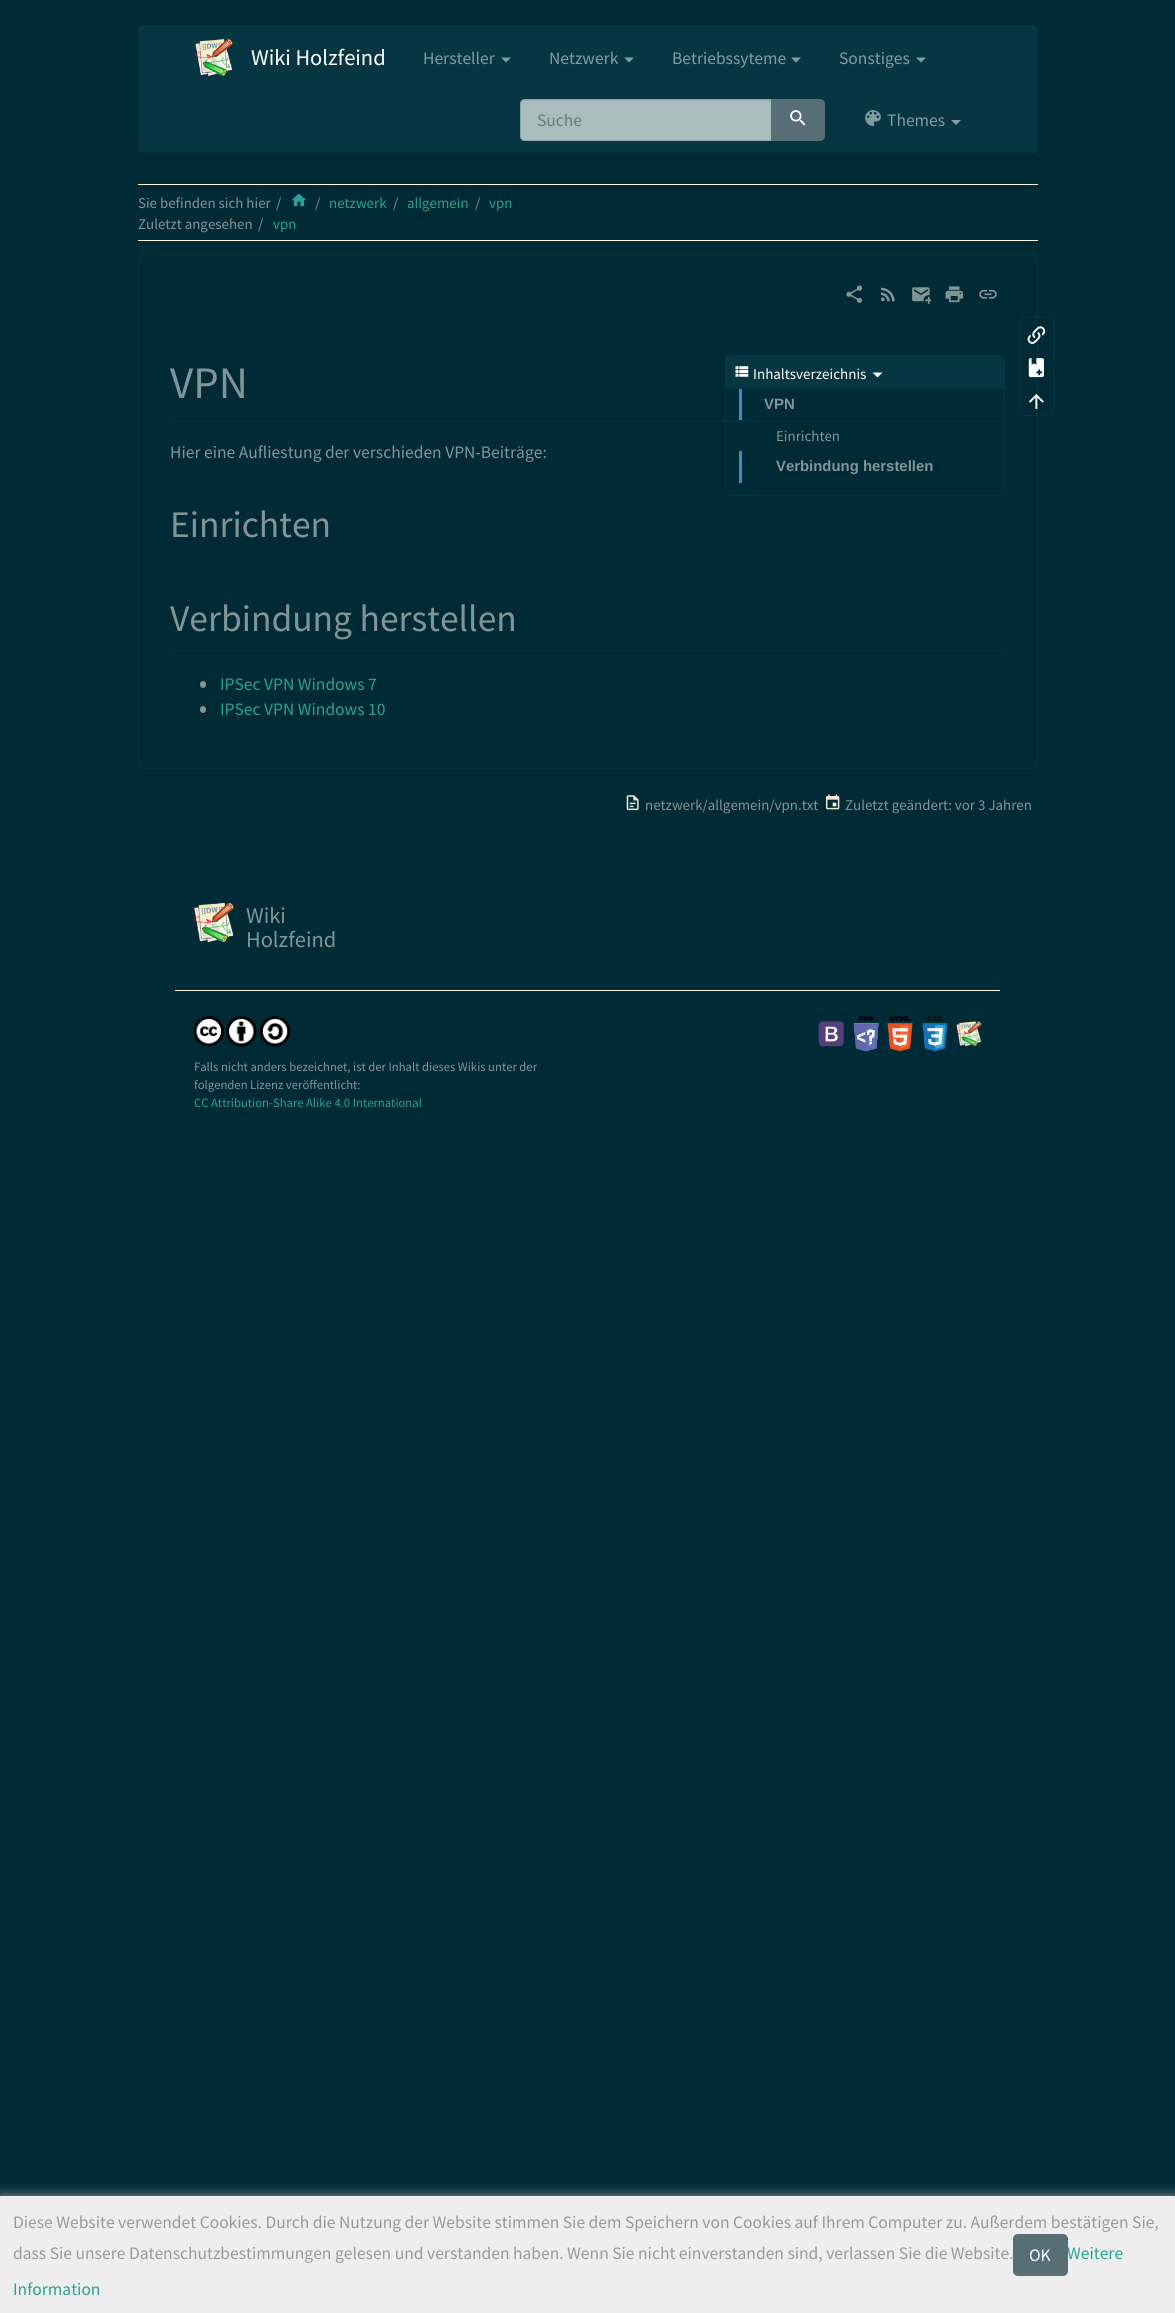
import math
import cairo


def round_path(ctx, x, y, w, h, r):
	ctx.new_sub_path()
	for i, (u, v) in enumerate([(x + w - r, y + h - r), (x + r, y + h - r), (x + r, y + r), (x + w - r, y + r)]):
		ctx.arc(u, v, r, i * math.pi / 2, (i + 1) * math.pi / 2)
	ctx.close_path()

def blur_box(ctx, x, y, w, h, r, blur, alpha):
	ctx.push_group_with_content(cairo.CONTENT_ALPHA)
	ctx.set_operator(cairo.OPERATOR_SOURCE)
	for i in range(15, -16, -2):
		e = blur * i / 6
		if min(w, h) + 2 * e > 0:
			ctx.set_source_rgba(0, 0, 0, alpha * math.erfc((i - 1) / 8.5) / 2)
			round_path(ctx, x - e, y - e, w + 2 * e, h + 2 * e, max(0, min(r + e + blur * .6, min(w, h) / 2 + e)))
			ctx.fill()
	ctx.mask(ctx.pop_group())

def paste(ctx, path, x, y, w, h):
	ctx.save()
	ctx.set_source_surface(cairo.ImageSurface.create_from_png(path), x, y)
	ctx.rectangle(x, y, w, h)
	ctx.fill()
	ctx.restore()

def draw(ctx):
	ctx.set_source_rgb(0, 0.169, 0.212)
	ctx.paint()
	ctx.set_source_rgb(0.027, 0.212, 0.259)
	round_path(ctx, 138, 25, 900, 128, 5)
	ctx.fill()
	paste(ctx, 'media/1.png', 195, 38, 38, 39)
	ctx.select_font_face('Source Sans Pro')
	ctx.set_font_size(22.5)
	ctx.set_source_rgb(1, 1, 1)
	ctx.move_to(251, 65)
	ctx.show_text('Wiki Holzfeind')
	ctx.set_font_size(17.5)
	ctx.set_source_rgb(0.514, 0.608, 0.631)
	ctx.move_to(423, 64)
	ctx.show_text('Hersteller')
	ctx.new_path()
	ctx.move_to(501, 57.5)
	ctx.line_to(511, 57.5)
	ctx.line_to(506, 62.5)
	ctx.close_path()
	ctx.fill()
	ctx.move_to(549, 64)
	ctx.show_text('Netzwerk')
	ctx.new_path()
	ctx.move_to(624, 57.5)
	ctx.line_to(634, 57.5)
	ctx.line_to(629, 62.5)
	ctx.close_path()
	ctx.fill()
	ctx.move_to(672, 64)
	ctx.show_text('Betriebssyteme')
	ctx.new_path()
	ctx.move_to(791, 57.5)
	ctx.line_to(801, 57.5)
	ctx.line_to(796, 62.5)
	ctx.close_path()
	ctx.fill()
	ctx.move_to(839, 64)
	ctx.show_text('Sonstiges')
	ctx.new_path()
	ctx.move_to(916, 57.5)
	ctx.line_to(926, 57.5)
	ctx.line_to(921, 62.5)
	ctx.close_path()
	ctx.fill()
	ctx.set_source_rgb(0.663, 0.741, 0.741)
	ctx.new_path()
	ctx.move_to(525, 99)
	ctx.line_to(773, 99)
	ctx.line_to(773, 141)
	ctx.line_to(525, 141)
	ctx.curve_to(522, 141, 520, 139, 520, 136)
	ctx.line_to(520, 104)
	ctx.curve_to(520, 101, 522, 99, 525, 99)
	ctx.close_path()
	ctx.fill()
	ctx.set_source_rgb(0.612, 0.686, 0.686)
	ctx.new_path()
	ctx.move_to(525, 101)
	ctx.line_to(771, 101)
	ctx.line_to(771, 100)
	ctx.line_to(525, 100)
	ctx.curve_to(523, 100, 521, 102, 521, 104)
	ctx.line_to(521, 105)
	ctx.curve_to(521, 103, 523, 101, 525, 101)
	ctx.close_path()
	ctx.fill()
	ctx.new_path()
	ctx.move_to(525, 99.5)
	ctx.line_to(772.5, 99.5)
	ctx.line_to(772.5, 140.5)
	ctx.line_to(525, 140.5)
	ctx.curve_to(522.5, 140.5, 520.5, 138.5, 520.5, 136)
	ctx.line_to(520.5, 104)
	ctx.curve_to(520.5, 101.5, 522.5, 99.5, 525, 99.5)
	ctx.close_path()
	ctx.set_source_rgba(0, 0, 0, 0.15)
	ctx.set_line_width(1)
	ctx.stroke()
	ctx.set_source_rgb(0.396, 0.482, 0.514)
	ctx.move_to(537, 126)
	ctx.show_text('Suche')
	ctx.set_source_rgb(0.345, 0.431, 0.459)
	ctx.new_path()
	ctx.move_to(771.5, 99.5)
	ctx.line_to(820, 99.5)
	ctx.curve_to(822.5, 99.5, 824.5, 101.5, 824.5, 104)
	ctx.line_to(824.5, 136)
	ctx.curve_to(824.5, 138.5, 822.5, 140.5, 820, 140.5)
	ctx.line_to(771.5, 140.5)
	ctx.close_path()
	ctx.fill_preserve()
	ctx.stroke()
	paste(ctx, 'media/2.png', 790, 110, 16, 16)
	paste(ctx, 'media/3.png', 865, 110, 16, 16)
	ctx.set_source_rgb(0.514, 0.608, 0.631)
	ctx.move_to(887, 126)
	ctx.show_text('Themes')
	ctx.new_path()
	ctx.move_to(951, 120)
	ctx.line_to(961, 120)
	ctx.line_to(956, 125)
	ctx.close_path()
	ctx.fill()
	ctx.set_source_rgb(0.992, 0.965, 0.89)
	ctx.rectangle(138, 184, 900, 1)
	ctx.fill()
	ctx.set_font_size(14.9)
	ctx.set_source_rgb(0.514, 0.58, 0.588)
	ctx.move_to(138, 208)
	ctx.show_text('Sie befinden sich hier')
	ctx.move_to(276, 208)
	ctx.show_text('/')
	paste(ctx, 'media/4.png', 291, 193, 15, 14)
	ctx.move_to(315, 208)
	ctx.show_text('/')
	ctx.set_source_rgb(0.165, 0.631, 0.596)
	ctx.move_to(329, 208)
	ctx.show_text('netzwerk')
	ctx.set_source_rgb(0.514, 0.58, 0.588)
	ctx.move_to(393, 208)
	ctx.show_text('/')
	ctx.set_source_rgb(0.165, 0.631, 0.596)
	ctx.move_to(407, 208)
	ctx.show_text('allgemein')
	ctx.set_source_rgb(0.514, 0.58, 0.588)
	ctx.move_to(475, 208)
	ctx.show_text('/')
	ctx.set_source_rgb(0.165, 0.631, 0.596)
	ctx.move_to(489, 208)
	ctx.show_text('vpn')
	ctx.set_source_rgb(0.514, 0.58, 0.588)
	ctx.move_to(138, 229)
	ctx.show_text('Zuletzt angesehen')
	ctx.move_to(258, 229)
	ctx.show_text('/')
	ctx.set_source_rgb(0.165, 0.631, 0.596)
	ctx.move_to(273, 229)
	ctx.show_text('vpn')
	ctx.set_source_rgb(0.992, 0.965, 0.89)
	ctx.rectangle(138, 240, 900, 1)
	ctx.fill()
	round_path(ctx, 138.5, 254.5, 899, 514, 4.5)
	ctx.set_source_rgb(0.027, 0.212, 0.259)
	ctx.stroke()
	round_path(ctx, 1019.5, 316.5, 34, 99, 4.5)
	ctx.stroke()
	paste(ctx, 'media/5.png', 1027, 326, 19, 18)
	paste(ctx, 'media/6.png', 1028, 358, 16, 20)
	paste(ctx, 'media/7.png', 1029, 394, 15, 15)
	paste(ctx, 'media/8.png', 846, 285, 17, 18)
	paste(ctx, 'media/9.png', 881, 287, 14, 15)
	paste(ctx, 'media/10.png', 912, 287, 19, 17)
	paste(ctx, 'media/11.png', 945, 286, 18, 17)
	paste(ctx, 'media/12.png', 979, 289, 18, 10)
	ctx.rectangle(170, 420, 835, 1)
	ctx.fill()
	ctx.set_font_size(45)
	ctx.set_source_rgb(0.514, 0.58, 0.588)
	ctx.move_to(170, 398)
	ctx.show_text('VPN')
	ctx.set_font_size(17.5)
	ctx.move_to(170, 458)
	ctx.show_text('Hier eine Aufliestung der verschieden VPN-Beiträge:')
	ctx.set_source_rgb(0.027, 0.212, 0.259)
	ctx.rectangle(170, 558, 835, 1)
	ctx.fill()
	ctx.set_font_size(37.5)
	ctx.set_source_rgb(0.514, 0.58, 0.588)
	ctx.move_to(170, 537)
	ctx.show_text('Einrichten')
	ctx.set_source_rgb(0.027, 0.212, 0.259)
	ctx.rectangle(170, 651, 835, 1)
	ctx.fill()
	ctx.set_source_rgb(0.514, 0.58, 0.588)
	ctx.move_to(170, 631)
	ctx.show_text('Verbindung herstellen')
	round_path(ctx, 200, 681, 6, 7, 3)
	ctx.fill()
	ctx.set_font_size(17.5)
	ctx.set_source_rgb(0.165, 0.631, 0.596)
	ctx.move_to(220, 690)
	ctx.show_text('IPSec VPN Windows 7')
	ctx.set_source_rgb(0.514, 0.58, 0.588)
	round_path(ctx, 200, 706, 6, 7, 3)
	ctx.fill()
	ctx.set_source_rgb(0.165, 0.631, 0.596)
	ctx.move_to(220, 715)
	ctx.show_text('IPSec VPN Windows 10')
	ctx.set_source_rgb(0.6, 0.6, 0.6)
	blur_box(ctx, 0, 2196, 1175, 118, 0, 6, 1)
	ctx.set_source_rgb(0.933, 0.933, 0.933)
	ctx.rectangle(0, 2196, 1175, 117)
	ctx.fill()
	ctx.set_source_rgb(0.6, 0.6, 0.6)
	ctx.move_to(13, 2228)
	ctx.show_text('Diese Website verwendet Cookies. Durch die Nutzung der Website stimmen Sie dem Speichern von Cookies auf Ihrem Computer zu. Außerdem bestätigen Sie,')
	ctx.move_to(13, 2259)
	ctx.show_text('dass Sie unsere Datenschutzbestimmungen gelesen und verstanden haben. Wenn Sie nicht einverstanden sind, verlassen Sie die Website.')
	ctx.set_source_rgb(0.345, 0.431, 0.459)
	round_path(ctx, 1013.5, 2234.5, 54, 41, 4.5)
	ctx.fill_preserve()
	ctx.stroke()
	ctx.set_source_rgb(1, 1, 1)
	ctx.move_to(1029, 2261)
	ctx.show_text('OK')
	ctx.set_source_rgb(0.165, 0.631, 0.596)
	ctx.move_to(1067, 2259)
	ctx.show_text('Weitere')
	ctx.move_to(13, 2295)
	ctx.show_text('Information')
	round_path(ctx, 725.5, 355.5, 279, 140, 4.5)
	ctx.set_source_rgb(0.027, 0.212, 0.259)
	ctx.stroke()
	ctx.new_path()
	ctx.move_to(730, 356)
	ctx.line_to(1000, 356)
	ctx.curve_to(1002, 356, 1004, 358, 1004, 360)
	ctx.line_to(1004, 389)
	ctx.line_to(726, 389)
	ctx.line_to(726, 360)
	ctx.curve_to(726, 358, 728, 356, 730, 356)
	ctx.close_path()
	ctx.fill()
	paste(ctx, 'media/13.png', 735, 366, 14, 11)
	ctx.set_font_size(15)
	ctx.set_source_rgb(1, 1, 1)
	ctx.move_to(753, 379)
	ctx.show_text('Inhaltsverzeichnis')
	ctx.new_path()
	ctx.move_to(872.5, 372.5)
	ctx.line_to(882.5, 372.5)
	ctx.line_to(877.5, 377.5)
	ctx.close_path()
	ctx.fill()
	ctx.set_source_rgb(0.259, 0.545, 0.792)
	ctx.rectangle(739, 389, 3, 31)
	ctx.fill()
	ctx.select_font_face('Liberation Sans', cairo.FONT_SLANT_NORMAL, cairo.FONT_WEIGHT_BOLD)
	ctx.set_font_size(14.9)
	ctx.set_source_rgb(0.514, 0.58, 0.588)
	ctx.move_to(764, 409)
	ctx.show_text('VPN')
	ctx.select_font_face('Source Sans Pro')
	ctx.move_to(776, 441)
	ctx.show_text('Einrichten')
	ctx.set_source_rgb(0.259, 0.545, 0.792)
	ctx.rectangle(739, 451, 3, 32)
	ctx.fill()
	ctx.select_font_face('Liberation Sans', cairo.FONT_SLANT_NORMAL, cairo.FONT_WEIGHT_BOLD)
	ctx.set_source_rgb(0.514, 0.58, 0.588)
	ctx.move_to(776, 471)
	ctx.show_text('Verbindung herstellen')
	paste(ctx, 'media/14.png', 626, 795, 13, 16)
	ctx.select_font_face('Source Sans Pro')
	ctx.move_to(645, 810)
	ctx.show_text('netzwerk/allgemein/vpn.txt')
	paste(ctx, 'media/15.png', 826, 794, 14, 16)
	ctx.move_to(845, 810)
	ctx.show_text('Zuletzt geändert: vor 3 Jahren')
	paste(ctx, 'media/16.png', 193, 902, 41, 41)
	ctx.set_font_size(22.5)
	ctx.move_to(246, 923)
	ctx.show_text('Wiki')
	ctx.move_to(246, 947)
	ctx.show_text('Holzfeind')
	ctx.set_source_rgb(0.992, 0.965, 0.89)
	ctx.rectangle(175, 990, 825, 1)
	ctx.fill()
	paste(ctx, 'media/17.png', 818, 1021, 26, 26)
	paste(ctx, 'media/18.png', 853, 1016, 26, 36)
	paste(ctx, 'media/19.png', 887, 1016, 26, 36)
	paste(ctx, 'media/20.png', 922, 1016, 26, 36)
	paste(ctx, 'media/21.png', 956, 1021, 26, 26)
	paste(ctx, 'media/22.png', 193, 1016, 31, 31)
	paste(ctx, 'media/23.png', 226, 1016, 31, 31)
	paste(ctx, 'media/24.png', 260, 1016, 30, 31)
	ctx.set_font_size(12.65)
	ctx.set_source_rgb(0.514, 0.58, 0.588)
	ctx.move_to(194, 1071)
	ctx.show_text('Falls nicht anders bezeichnet, ist der Inhalt dieses Wikis unter der')
	ctx.move_to(194, 1089)
	ctx.show_text('folgenden Lizenz veröffentlicht:')
	ctx.set_source_rgb(0.165, 0.631, 0.596)
	ctx.move_to(194, 1107)
	ctx.show_text('CC Attribution-Share Alike 4.0 International')


surface = cairo.ImageSurface(cairo.FORMAT_RGB24, 1175, 2313)
ctx = cairo.Context(surface)
options = cairo.FontOptions()
options.set_hint_metrics(cairo.HINT_METRICS_OFF)
options.set_hint_style(cairo.HINT_STYLE_NONE)
ctx.set_font_options(options)
ctx.set_miter_limit(4)
draw(ctx)
surface.write_to_png('image.png')
